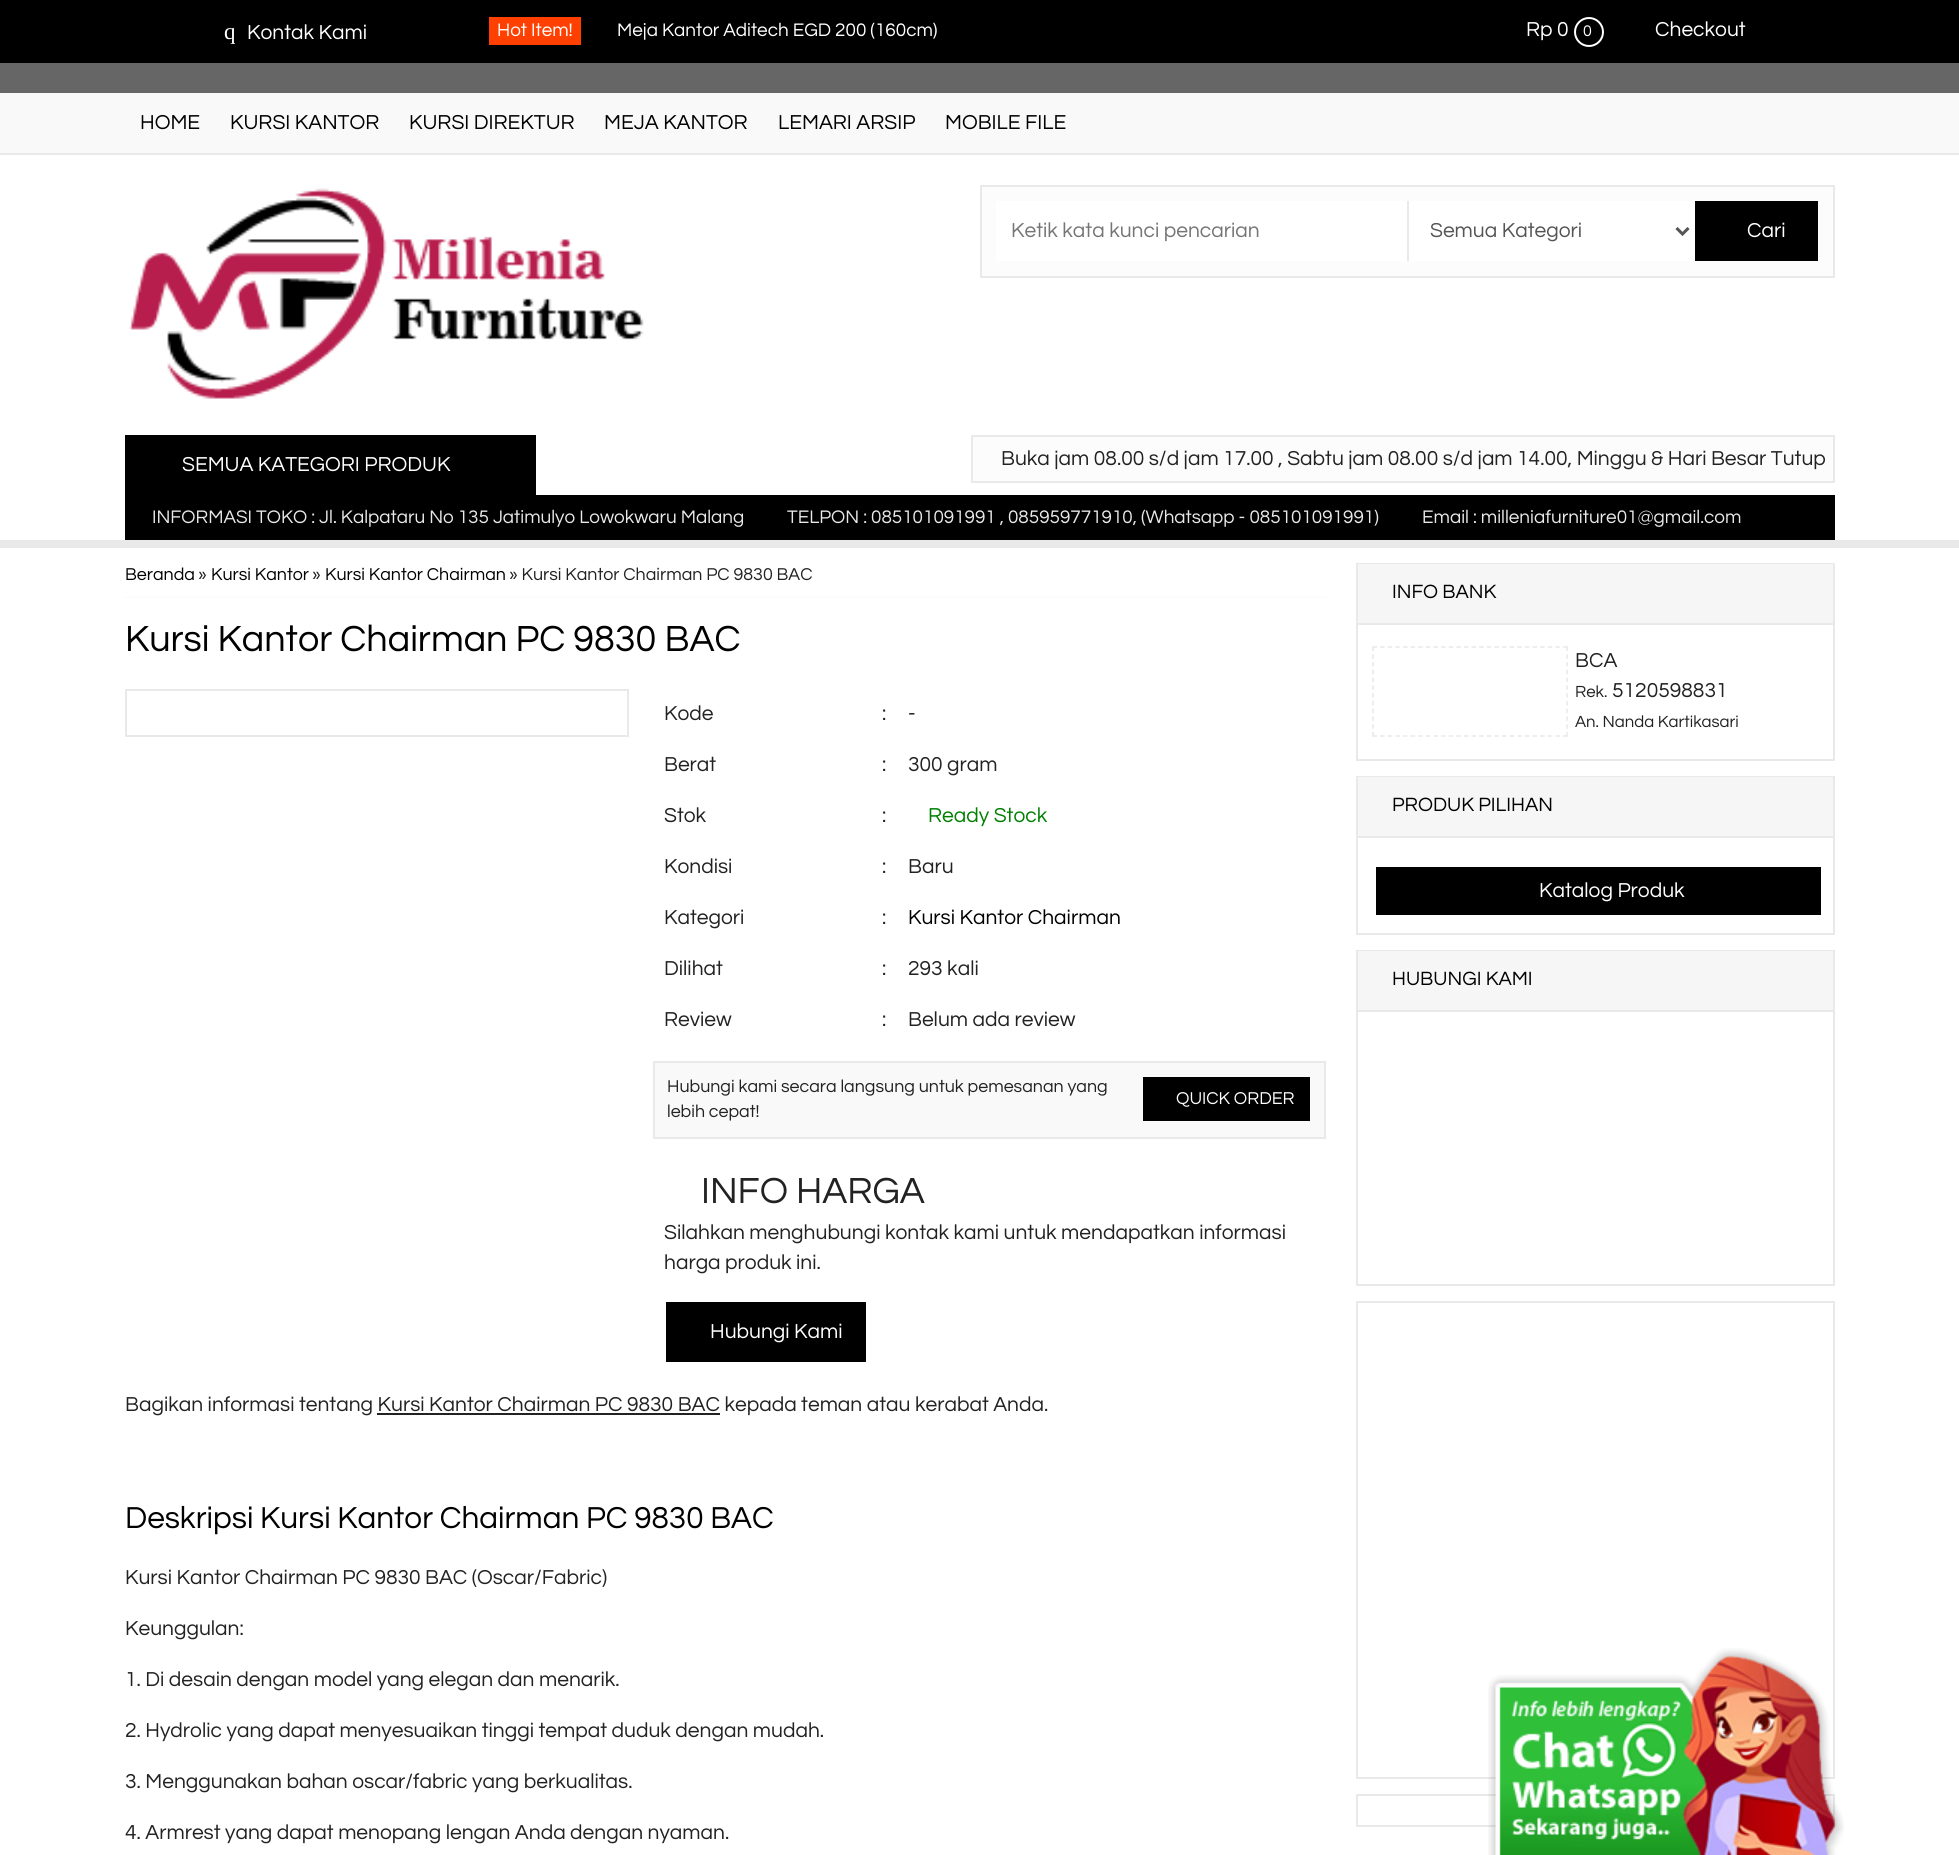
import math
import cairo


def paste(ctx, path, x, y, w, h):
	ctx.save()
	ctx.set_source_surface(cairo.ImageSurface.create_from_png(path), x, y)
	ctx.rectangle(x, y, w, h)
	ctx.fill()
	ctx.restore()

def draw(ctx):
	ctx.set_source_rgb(0.4, 0.4, 0.4)
	ctx.paint()
	ctx.set_source_rgb(0, 0, 0)
	ctx.rectangle(0, 0, 1959, 63)
	ctx.fill()
	ctx.select_font_face('Liberation Serif')
	ctx.set_font_size(23)
	ctx.set_source_rgb(1, 1, 1)
	ctx.move_to(224, 39)
	ctx.show_text('q')
	ctx.select_font_face('Questrial')
	ctx.set_font_size(21)
	ctx.move_to(247, 39)
	ctx.show_text('Kontak Kami')
	ctx.set_source_rgb(1, 0.251, 0)
	ctx.rectangle(489, 17, 92, 28)
	ctx.fill()
	ctx.set_font_size(18.9)
	ctx.set_source_rgb(1, 1, 1)
	ctx.move_to(497, 36)
	ctx.show_text('Hot Item!')
	ctx.move_to(617, 36)
	ctx.show_text('Meja Kantor Aditech EGD 200 (160cm)')
	ctx.set_font_size(21)
	ctx.move_to(1526, 36)
	ctx.show_text('Rp 0')
	ctx.new_path()
	ctx.arc(1589, 32, 14, 0, 2 * math.pi)
	ctx.stroke()
	ctx.set_font_size(16)
	ctx.move_to(1583, 36)
	ctx.show_text('0')
	ctx.set_font_size(21)
	ctx.move_to(1655, 36)
	ctx.show_text('Checkout')
	ctx.set_source_rgb(0.976, 0.976, 0.976)
	ctx.rectangle(0, 93, 1959, 60)
	ctx.fill()
	ctx.set_source_rgb(0.914, 0.914, 0.914)
	ctx.rectangle(0, 153, 1959, 2)
	ctx.fill()
	ctx.set_source_rgb(0, 0, 0)
	for x, y, s in [
		(140, 129, 'HOME'),
		(230, 129, 'KURSI KANTOR'),
		(409, 129, 'KURSI DIREKTUR'),
		(604, 129, 'MEJA KANTOR'),
		(778, 129, 'LEMARI ARSIP'),
		(945, 129, 'MOBILE FILE'),
	]:
		ctx.move_to(x, y)
		ctx.show_text(s)
	ctx.set_source_rgb(1, 1, 1)
	ctx.rectangle(0, 155, 1959, 385)
	ctx.fill()
	paste(ctx, 'media/1.png', 129, 188, 515, 211)
	ctx.set_source_rgb(0.988, 0.988, 0.988)
	ctx.rectangle(981, 186, 853, 91)
	ctx.fill_preserve()
	ctx.set_source_rgb(0.914, 0.914, 0.914)
	ctx.stroke()
	ctx.set_source_rgb(1, 1, 1)
	ctx.rectangle(996, 201, 411, 60)
	ctx.fill()
	ctx.set_source_rgb(0.459, 0.459, 0.459)
	ctx.move_to(1011, 237)
	ctx.show_text('Ketik kata kunci pencarian')
	ctx.set_source_rgb(1, 1, 1)
	ctx.rectangle(1409, 201, 286, 60)
	ctx.fill()
	ctx.set_source_rgb(0.914, 0.914, 0.914)
	ctx.rectangle(1407, 201, 2, 60)
	ctx.fill()
	ctx.new_path()
	ctx.move_to(1676.5, 228)
	ctx.line_to(1682.5, 234)
	ctx.line_to(1688.5, 228)
	ctx.set_source_rgb(0.333, 0.333, 0.333)
	ctx.set_line_width(3)
	ctx.stroke()
	ctx.move_to(1430, 237)
	ctx.show_text('Semua Kategori')
	ctx.set_source_rgb(0, 0, 0)
	ctx.rectangle(1695, 201, 123, 60)
	ctx.fill()
	ctx.set_source_rgb(1, 1, 1)
	ctx.move_to(1747, 237)
	ctx.show_text('Cari')
	ctx.set_source_rgb(0, 0, 0)
	ctx.rectangle(125, 435, 411, 60)
	ctx.fill()
	ctx.set_source_rgb(1, 1, 1)
	ctx.move_to(182, 471)
	ctx.show_text('SEMUA KATEGORI PRODUK')
	ctx.set_source_rgb(0.988, 0.988, 0.988)
	ctx.rectangle(972, 436, 862, 46)
	ctx.fill_preserve()
	ctx.set_source_rgb(0.914, 0.914, 0.914)
	ctx.set_line_width(2)
	ctx.stroke()
	ctx.set_source_rgb(0.133, 0.133, 0.133)
	ctx.move_to(1001, 465)
	ctx.show_text('Buka jam 08.00 s/d jam 17.00 , Sabtu jam 08.00 s/d jam 14.00, Minggu & Hari Besar Tutup')
	ctx.set_source_rgb(0, 0, 0)
	ctx.rectangle(125, 495, 1710, 45)
	ctx.fill()
	ctx.set_font_size(18.9)
	ctx.set_source_rgb(0.914, 0.914, 0.914)
	for x, y, s in [
		(152, 523, 'INFORMASI TOKO : Jl. Kalpataru No 135 Jatimulyo Lowokwaru Malang'),
		(787, 523, 'TELPON : 085101091991 , 085959771910, (Whatsapp - 085101091991)'),
		(1422, 523, 'Email : milleniafurniture01@gmail.com'),
	]:
		ctx.move_to(x, y)
		ctx.show_text(s)
	ctx.set_source_rgb(1, 1, 1)
	ctx.rectangle(0, 548, 1959, 1307)
	ctx.fill()
	ctx.set_source_rgb(0.914, 0.914, 0.914)
	ctx.rectangle(0, 540, 1959, 8)
	ctx.fill()
	ctx.set_source_rgb(0.988, 0.988, 0.988)
	ctx.rectangle(125, 596, 1201, 2)
	ctx.fill()
	ctx.set_font_size(17.85)
	ctx.set_source_rgb(0, 0, 0)
	ctx.move_to(125, 580)
	ctx.show_text('Beranda')
	ctx.set_source_rgb(0.133, 0.133, 0.133)
	ctx.move_to(198, 580)
	ctx.show_text('»')
	ctx.set_source_rgb(0, 0, 0)
	ctx.move_to(211, 580)
	ctx.show_text('Kursi Kantor')
	ctx.set_source_rgb(0.133, 0.133, 0.133)
	ctx.move_to(312, 580)
	ctx.show_text('»')
	ctx.set_source_rgb(0, 0, 0)
	ctx.move_to(325, 580)
	ctx.show_text('Kursi Kantor Chairman')
	ctx.set_source_rgb(0.133, 0.133, 0.133)
	ctx.move_to(509, 580)
	ctx.show_text('» Kursi Kantor Chairman PC 9830 BAC')
	ctx.set_font_size(37.75)
	ctx.set_source_rgb(0, 0, 0)
	ctx.move_to(125, 651)
	ctx.show_text('Kursi Kantor Chairman PC 9830 BAC')
	ctx.rectangle(126, 690, 502, 46)
	ctx.set_source_rgb(0.914, 0.914, 0.914)
	ctx.stroke()
	ctx.set_font_size(21)
	ctx.set_source_rgb(0.133, 0.133, 0.133)
	for x, y, s in [
		(664, 720, 'Kode'),
		(882, 720, ':'),
		(908, 720, '-'),
		(664, 771, 'Berat'),
		(882, 771, ':'),
		(908, 771, '300 gram'),
		(664, 822, 'Stok'),
		(882, 822, ':'),
	]:
		ctx.move_to(x, y)
		ctx.show_text(s)
	ctx.set_source_rgb(0, 0.502, 0)
	ctx.move_to(928, 822)
	ctx.show_text('Ready Stock')
	ctx.set_source_rgb(0.133, 0.133, 0.133)
	for x, y, s in [
		(664, 873, 'Kondisi'),
		(882, 873, ':'),
		(908, 873, 'Baru'),
		(664, 924, 'Kategori'),
		(882, 924, ':'),
	]:
		ctx.move_to(x, y)
		ctx.show_text(s)
	ctx.set_source_rgb(0, 0, 0)
	ctx.move_to(908, 924)
	ctx.show_text('Kursi Kantor Chairman')
	ctx.set_source_rgb(0.133, 0.133, 0.133)
	for x, y, s in [
		(664, 975, 'Dilihat'),
		(882, 975, ':'),
		(908, 975, '293 kali'),
		(664, 1026, 'Review'),
		(882, 1026, ':'),
		(908, 1026, 'Belum ada review'),
	]:
		ctx.move_to(x, y)
		ctx.show_text(s)
	ctx.set_source_rgb(0.976, 0.976, 0.976)
	ctx.rectangle(654, 1062, 671, 76)
	ctx.fill_preserve()
	ctx.set_source_rgb(0.914, 0.914, 0.914)
	ctx.stroke()
	ctx.set_font_size(17.85)
	ctx.set_source_rgb(0.133, 0.133, 0.133)
	ctx.move_to(667, 1092)
	ctx.show_text('Hubungi kami secara langsung untuk pemesanan yang')
	ctx.set_source_rgb(0, 0, 0)
	ctx.rectangle(1143, 1077, 167, 44)
	ctx.fill()
	ctx.set_source_rgb(1, 1, 1)
	ctx.move_to(1176, 1104)
	ctx.show_text('QUICK ORDER')
	ctx.set_source_rgb(0.133, 0.133, 0.133)
	ctx.move_to(667, 1117)
	ctx.show_text('lebih cepat!')
	ctx.set_font_size(37.75)
	ctx.move_to(701, 1203)
	ctx.show_text('INFO HARGA')
	ctx.set_font_size(21)
	ctx.move_to(664, 1239)
	ctx.show_text('Silahkan menghubungi kontak kami untuk mendapatkan informasi')
	ctx.move_to(664, 1269)
	ctx.show_text('harga produk ini.')
	ctx.set_source_rgb(0, 0, 0)
	ctx.rectangle(666, 1302, 200, 60)
	ctx.fill()
	ctx.set_source_rgb(1, 1, 1)
	ctx.move_to(710, 1338)
	ctx.show_text('Hubungi Kami')
	ctx.set_source_rgb(0.133, 0.133, 0.133)
	ctx.move_to(125, 1411)
	ctx.show_text('Bagikan informasi tentang Kursi Kantor Chairman PC 9830 BAC kepada teman atau kerabat Anda.')
	ctx.rectangle(377, 1413, 343, 2)
	ctx.fill()
	ctx.set_font_size(31.5)
	ctx.set_source_rgb(0, 0, 0)
	ctx.move_to(125, 1528)
	ctx.show_text('Deskripsi Kursi Kantor Chairman PC 9830 BAC')
	ctx.set_font_size(21)
	ctx.set_source_rgb(0.133, 0.133, 0.133)
	for x, y, s in [
		(125, 1584, 'Kursi Kantor Chairman PC 9830 BAC (Oscar/Fabric)'),
		(125, 1635, 'Keunggulan:'),
		(125, 1686, '1. Di desain dengan model yang elegan dan menarik.'),
		(125, 1737, '2. Hydrolic yang dapat menyesuaikan tinggi tempat duduk dengan mudah.'),
		(125, 1788, '3. Menggunakan bahan oscar/fabric yang berkualitas.'),
		(125, 1839, '4. Armrest yang dapat menopang lengan Anda dengan nyaman.'),
	]:
		ctx.move_to(x, y)
		ctx.show_text(s)
	ctx.rectangle(1357, 564, 477, 196)
	ctx.set_source_rgb(0.914, 0.914, 0.914)
	ctx.stroke()
	ctx.set_source_rgb(0.961, 0.961, 0.961)
	ctx.rectangle(1358, 564, 475, 59)
	ctx.fill()
	ctx.set_source_rgb(0.914, 0.914, 0.914)
	ctx.rectangle(1358, 623, 475, 2)
	ctx.fill()
	ctx.set_font_size(20)
	ctx.set_source_rgb(0, 0, 0)
	ctx.move_to(1392, 598)
	ctx.show_text('INFO BANK')
	ctx.new_path()
	ctx.move_to(1372.5, 647)
	ctx.line_to(1567.5, 647)
	ctx.set_source_rgb(0.914, 0.914, 0.914)
	ctx.set_line_width(1.5)
	ctx.set_dash([4.5, 3.12])
	ctx.stroke()
	ctx.new_path()
	ctx.move_to(1567, 646.5)
	ctx.line_to(1567, 736.5)
	ctx.set_dash([4.5, 3.27])
	ctx.stroke()
	ctx.new_path()
	ctx.move_to(1372.5, 736)
	ctx.line_to(1567.5, 736)
	ctx.set_dash([4.5, 3.12])
	ctx.stroke()
	ctx.new_path()
	ctx.move_to(1373, 646.5)
	ctx.line_to(1373, 736.5)
	ctx.set_dash([4.5, 3.27])
	ctx.stroke()
	ctx.set_font_size(21)
	ctx.set_source_rgb(0.133, 0.133, 0.133)
	ctx.move_to(1575, 667)
	ctx.show_text('BCA')
	ctx.set_font_size(16.75)
	ctx.move_to(1575, 697)
	ctx.show_text('Rek.')
	ctx.set_font_size(21)
	ctx.move_to(1612, 697)
	ctx.show_text('5120598831')
	ctx.set_font_size(16.75)
	ctx.move_to(1575, 727)
	ctx.show_text('An. Nanda Kartikasari')
	ctx.rectangle(1357, 777, 477, 157)
	ctx.set_source_rgb(0.914, 0.914, 0.914)
	ctx.set_line_width(2)
	ctx.set_dash([])
	ctx.stroke()
	ctx.set_source_rgb(0.961, 0.961, 0.961)
	ctx.rectangle(1358, 777, 475, 59)
	ctx.fill()
	ctx.set_source_rgb(0.914, 0.914, 0.914)
	ctx.rectangle(1358, 836, 475, 2)
	ctx.fill()
	ctx.set_font_size(20)
	ctx.set_source_rgb(0, 0, 0)
	ctx.move_to(1392, 811)
	ctx.show_text('PRODUK PILIHAN')
	ctx.rectangle(1376, 867, 445, 48)
	ctx.fill()
	ctx.set_font_size(21)
	ctx.set_source_rgb(1, 1, 1)
	ctx.move_to(1539, 897)
	ctx.show_text('Katalog Produk')
	ctx.rectangle(1357, 951, 477, 334)
	ctx.set_source_rgb(0.914, 0.914, 0.914)
	ctx.stroke()
	ctx.set_source_rgb(0.961, 0.961, 0.961)
	ctx.rectangle(1358, 951, 475, 59)
	ctx.fill()
	ctx.set_source_rgb(0.914, 0.914, 0.914)
	ctx.rectangle(1358, 1010, 475, 2)
	ctx.fill()
	ctx.set_font_size(20)
	ctx.set_source_rgb(0, 0, 0)
	ctx.move_to(1392, 985)
	ctx.show_text('HUBUNGI KAMI')
	ctx.rectangle(1357, 1302, 477, 476)
	ctx.set_source_rgb(0.914, 0.914, 0.914)
	ctx.stroke()
	ctx.rectangle(1357, 1795, 477, 31)
	ctx.stroke()
	paste(ctx, 'media/2.png', 1488, 1648, 356, 207)


surface = cairo.ImageSurface(cairo.FORMAT_RGB24, 1959, 1855)
ctx = cairo.Context(surface)
options = cairo.FontOptions()
options.set_hint_metrics(cairo.HINT_METRICS_OFF)
options.set_hint_style(cairo.HINT_STYLE_NONE)
ctx.set_font_options(options)
ctx.set_miter_limit(4)
draw(ctx)
surface.write_to_png('image.png')
